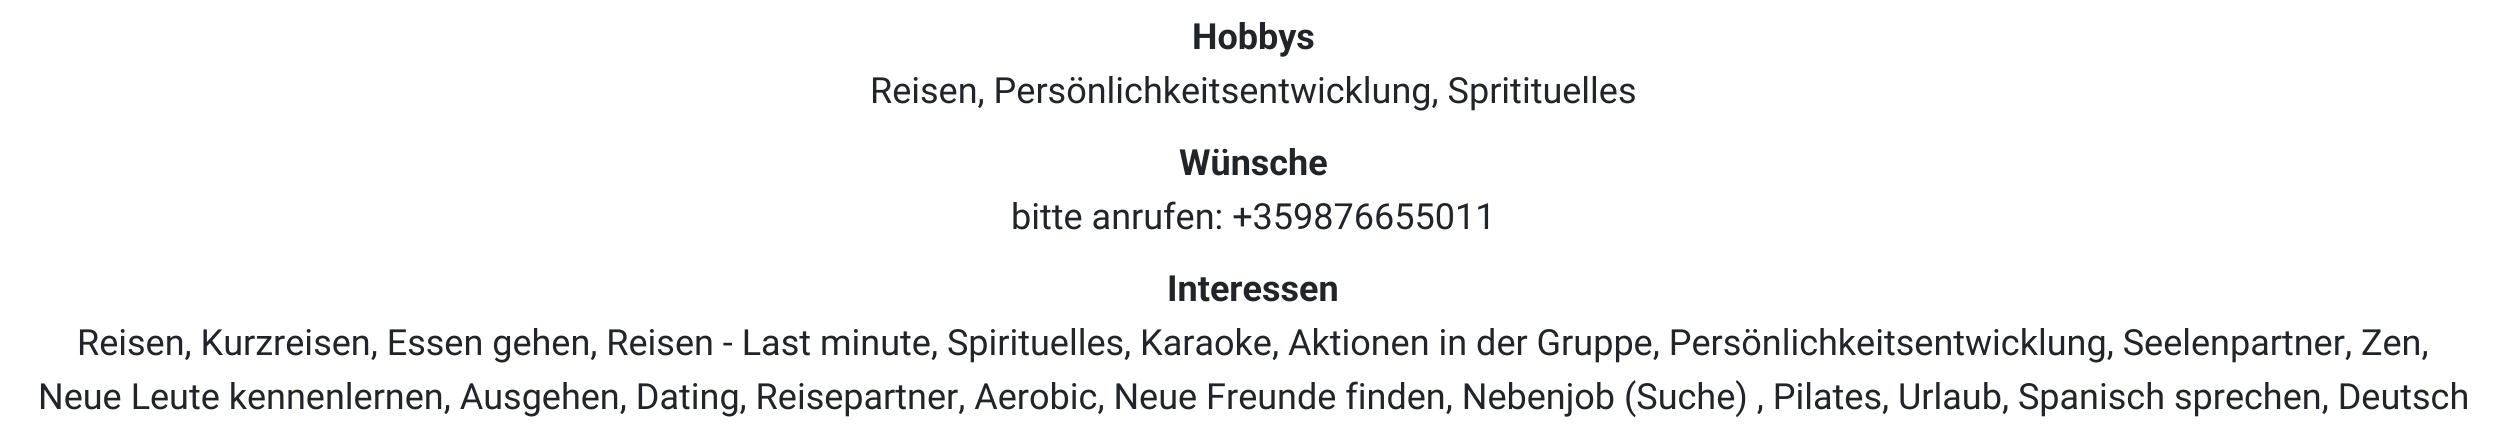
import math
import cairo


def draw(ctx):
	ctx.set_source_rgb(1, 1, 1)
	ctx.paint()
	ctx.select_font_face('Roboto', cairo.FONT_SLANT_NORMAL, cairo.FONT_WEIGHT_BOLD)
	ctx.set_font_size(36)
	ctx.set_source_rgb(0.129, 0.145, 0.161)
	ctx.move_to(1192, 49)
	ctx.show_text('Hobbys')
	ctx.select_font_face('Roboto')
	ctx.move_to(870, 103)
	ctx.show_text('Reisen, Persönlichkeitsentwicklung, Spritituelles')
	ctx.select_font_face('Roboto', cairo.FONT_SLANT_NORMAL, cairo.FONT_WEIGHT_BOLD)
	ctx.move_to(1179, 175)
	ctx.show_text('Wünsche')
	ctx.select_font_face('Roboto')
	ctx.move_to(1011, 229)
	ctx.show_text('bitte anrufen: +359876655011')
	ctx.select_font_face('Roboto', cairo.FONT_SLANT_NORMAL, cairo.FONT_WEIGHT_BOLD)
	ctx.move_to(1167, 301)
	ctx.show_text('Interessen')
	ctx.select_font_face('Roboto')
	ctx.move_to(77, 355)
	ctx.show_text('Reisen, Kurzreisen, Essen gehen, Reisen - Last minute, Spirituelles, Karaoke, Aktionen in der Gruppe, Persönlichkeitsentwicklung, Seelenpartner, Zen,')
	ctx.move_to(38, 409)
	ctx.show_text('Neue Leute kennenlernen, Ausgehen, Dating, Reisepartner, Aerobic, Neue Freunde finden, Nebenjob (Suche) , Pilates, Urlaub, Spanisch sprechen, Deutsch')


surface = cairo.ImageSurface(cairo.FORMAT_RGB24, 2505, 428)
ctx = cairo.Context(surface)
options = cairo.FontOptions()
options.set_hint_metrics(cairo.HINT_METRICS_OFF)
options.set_hint_style(cairo.HINT_STYLE_NONE)
ctx.set_font_options(options)
ctx.set_miter_limit(4)
draw(ctx)
surface.write_to_png('image.png')
